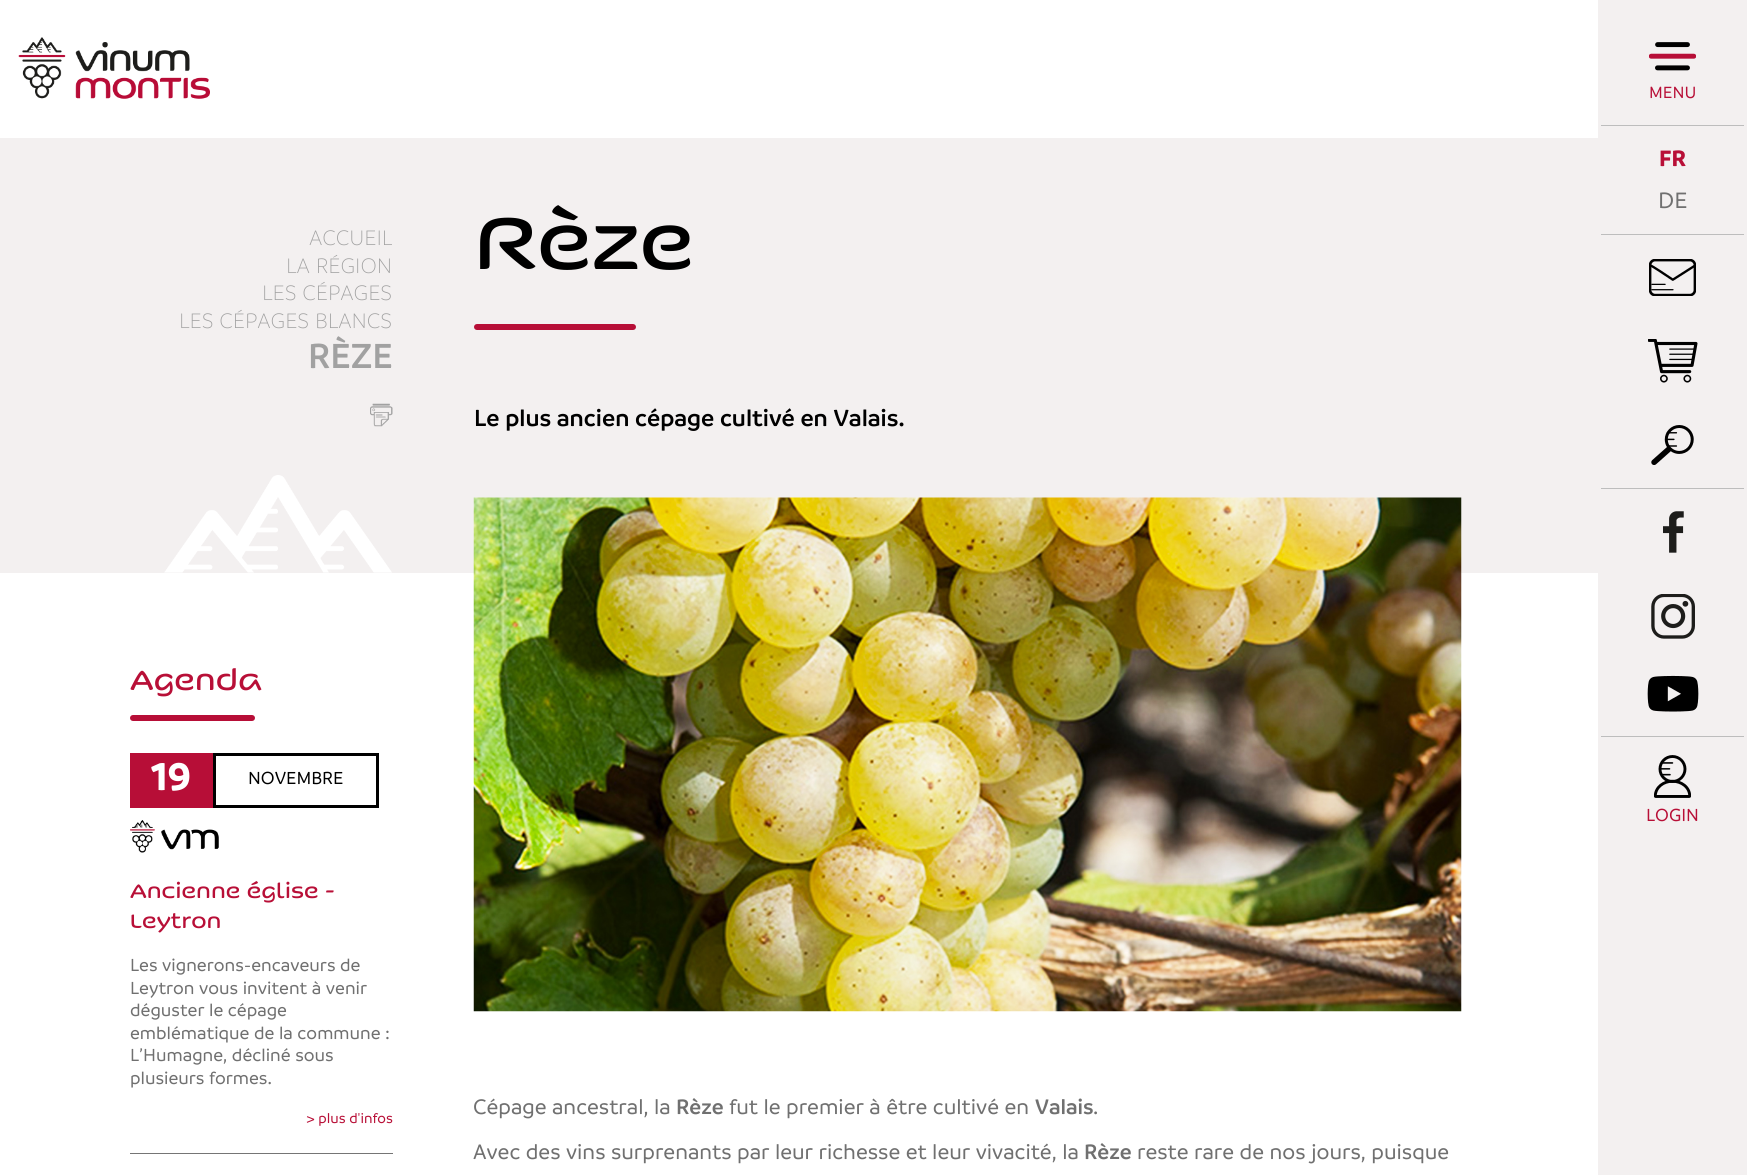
import math
import cairo


def round_path(ctx, x, y, w, h, r):
	ctx.new_sub_path()
	for i, (u, v) in enumerate([(x + w - r, y + h - r), (x + r, y + h - r), (x + r, y + r), (x + w - r, y + r)]):
		ctx.arc(u, v, r, i * math.pi / 2, (i + 1) * math.pi / 2)
	ctx.close_path()

def paste(ctx, path, x, y, w, h):
	ctx.save()
	ctx.set_source_surface(cairo.ImageSurface.create_from_png(path), x, y)
	ctx.rectangle(x, y, w, h)
	ctx.fill()
	ctx.restore()

def draw(ctx):
	ctx.set_source_rgb(1, 1, 1)
	ctx.paint()
	paste(ctx, 'media/1.png', 18, 37, 192, 62)
	ctx.set_source_rgb(0.953, 0.941, 0.941)
	ctx.rectangle(0, 138, 1598, 435)
	ctx.fill()
	paste(ctx, 'media/2.png', 164, 475, 228, 98)
	ctx.select_font_face('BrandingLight')
	ctx.set_font_size(22.5)
	ctx.set_source_rgb(0.631, 0.631, 0.631)
	for x, y, s in [
		(309, 245, 'ACCUEIL'),
		(286, 273, 'LA RÉGION'),
		(262, 300, 'LES CÉPAGES'),
		(179, 328, 'LES CÉPAGES BLANCS'),
	]:
		ctx.move_to(x, y)
		ctx.show_text(s)
	ctx.select_font_face('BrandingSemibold')
	ctx.set_font_size(37.5)
	ctx.move_to(308, 368)
	ctx.show_text('RÈZE')
	paste(ctx, 'media/3.png', 370, 403, 23, 24)
	ctx.select_font_face('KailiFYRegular')
	ctx.set_font_size(80)
	ctx.set_source_rgb(0, 0, 0)
	ctx.move_to(474, 269)
	ctx.show_text('Rèze')
	ctx.set_source_rgb(0.718, 0.055, 0.216)
	round_path(ctx, 474, 324, 162, 6, 3)
	ctx.fill()
	ctx.select_font_face('BrandingSemibold')
	ctx.set_font_size(25)
	ctx.set_source_rgb(0, 0, 0)
	ctx.move_to(474, 426)
	ctx.show_text('Le plus ancien cépage cultivé en Valais.')
	paste(ctx, 'media/4.png', 473, 497, 989, 515)
	ctx.select_font_face('KailiFYRegular')
	ctx.set_font_size(30)
	ctx.set_source_rgb(0.722, 0.059, 0.216)
	ctx.move_to(130, 690)
	ctx.show_text('Agenda')
	ctx.set_source_rgb(0.718, 0.055, 0.216)
	round_path(ctx, 130, 715, 125, 6, 3)
	ctx.fill()
	ctx.set_source_rgb(0.459, 0.459, 0.459)
	ctx.rectangle(130, 1153, 263, 1)
	ctx.fill()
	ctx.set_source_rgb(0.718, 0.055, 0.216)
	ctx.rectangle(130, 753, 83, 55)
	ctx.fill()
	ctx.select_font_face('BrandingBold')
	ctx.set_font_size(41)
	ctx.set_source_rgb(1, 1, 1)
	ctx.move_to(151, 790)
	ctx.show_text('19')
	ctx.rectangle(214.5, 754.5, 163, 52)
	ctx.set_source_rgb(0, 0, 0)
	ctx.set_line_width(3)
	ctx.stroke()
	ctx.select_font_face('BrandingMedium')
	ctx.set_font_size(18.75)
	ctx.move_to(248, 784)
	ctx.show_text('NOVEMBRE')
	paste(ctx, 'media/5.png', 130, 820, 89, 33)
	ctx.select_font_face('KailiFYRegular')
	ctx.set_font_size(21.25)
	ctx.set_source_rgb(0.722, 0.059, 0.216)
	ctx.move_to(130, 898)
	ctx.show_text('Ancienne église -')
	ctx.move_to(130, 928)
	ctx.show_text('Leytron')
	ctx.select_font_face('BrandingMedium')
	ctx.set_font_size(18.75)
	ctx.set_source_rgb(0.439, 0.439, 0.439)
	for x, y, s in [
		(130, 971, 'Les vignerons-encaveurs de'),
		(130, 994, 'Leytron vous invitent à venir'),
		(130, 1016, 'déguster le cépage'),
		(130, 1039, 'emblématique de la commune :'),
		(130, 1061, 'L’Humagne, décliné sous'),
		(130, 1084, 'plusieurs formes.'),
	]:
		ctx.move_to(x, y)
		ctx.show_text(s)
	ctx.set_font_size(15)
	ctx.set_source_rgb(0.722, 0.059, 0.216)
	ctx.move_to(306, 1123)
	ctx.show_text('> plus d\'infos')
	ctx.set_font_size(22.5)
	ctx.set_source_rgb(0.439, 0.439, 0.439)
	ctx.move_to(473, 1114)
	ctx.show_text('Cépage ancestral, la')
	ctx.select_font_face('BrandingSemibold')
	ctx.move_to(676, 1114)
	ctx.show_text('Rèze')
	ctx.select_font_face('BrandingMedium')
	ctx.move_to(729, 1114)
	ctx.show_text('fut le premier à être cultivé en')
	ctx.select_font_face('BrandingSemibold')
	ctx.move_to(1035, 1114)
	ctx.show_text('Valais')
	ctx.select_font_face('BrandingMedium')
	ctx.move_to(1093, 1114)
	ctx.show_text('.')
	ctx.move_to(473, 1159)
	ctx.show_text('Avec des vins surprenants par leur richesse et leur vivacité, la')
	ctx.select_font_face('BrandingSemibold')
	ctx.move_to(1084, 1159)
	ctx.show_text('Rèze')
	ctx.select_font_face('BrandingMedium')
	ctx.move_to(1137, 1159)
	ctx.show_text('reste rare de nos jours, puisque')
	ctx.set_source_rgb(0.953, 0.941, 0.941)
	ctx.rectangle(1598, 0, 149, 1175)
	ctx.fill()
	paste(ctx, 'media/6.png', 1649, 42, 47, 29)
	ctx.set_font_size(17.5)
	ctx.set_source_rgb(0.722, 0.059, 0.216)
	ctx.move_to(1649, 98)
	ctx.show_text('MENU')
	ctx.set_source_rgb(0.741, 0.741, 0.741)
	ctx.rectangle(1601, 125, 143, 1)
	ctx.fill()
	ctx.select_font_face('BrandingBold')
	ctx.set_font_size(24)
	ctx.set_source_rgb(0.722, 0.059, 0.216)
	ctx.move_to(1659, 166)
	ctx.show_text('FR')
	ctx.select_font_face('BrandingMedium')
	ctx.set_source_rgb(0.439, 0.439, 0.439)
	ctx.move_to(1658, 208)
	ctx.show_text('DE')
	ctx.set_source_rgb(0.741, 0.741, 0.741)
	ctx.rectangle(1601, 234, 143, 1)
	ctx.fill()
	paste(ctx, 'media/7.png', 1649, 259, 47, 37)
	paste(ctx, 'media/8.png', 1648, 339, 50, 44)
	paste(ctx, 'media/9.png', 1651, 425, 43, 40)
	ctx.rectangle(1601, 488, 143, 1)
	ctx.fill()
	paste(ctx, 'media/10.png', 1663, 511, 21, 42)
	paste(ctx, 'media/11.png', 1651, 594, 44, 45)
	paste(ctx, 'media/12.png', 1647, 675, 52, 37)
	ctx.rectangle(1601, 736, 143, 1)
	ctx.fill()
	paste(ctx, 'media/13.png', 1654, 755, 37, 43)
	ctx.set_font_size(18.75)
	ctx.set_source_rgb(0.722, 0.059, 0.216)
	ctx.move_to(1646, 821)
	ctx.show_text('LOGIN')


surface = cairo.ImageSurface(cairo.FORMAT_RGB24, 1747, 1175)
ctx = cairo.Context(surface)
options = cairo.FontOptions()
options.set_hint_metrics(cairo.HINT_METRICS_OFF)
options.set_hint_style(cairo.HINT_STYLE_NONE)
ctx.set_font_options(options)
ctx.set_miter_limit(4)
draw(ctx)
surface.write_to_png('image.png')
